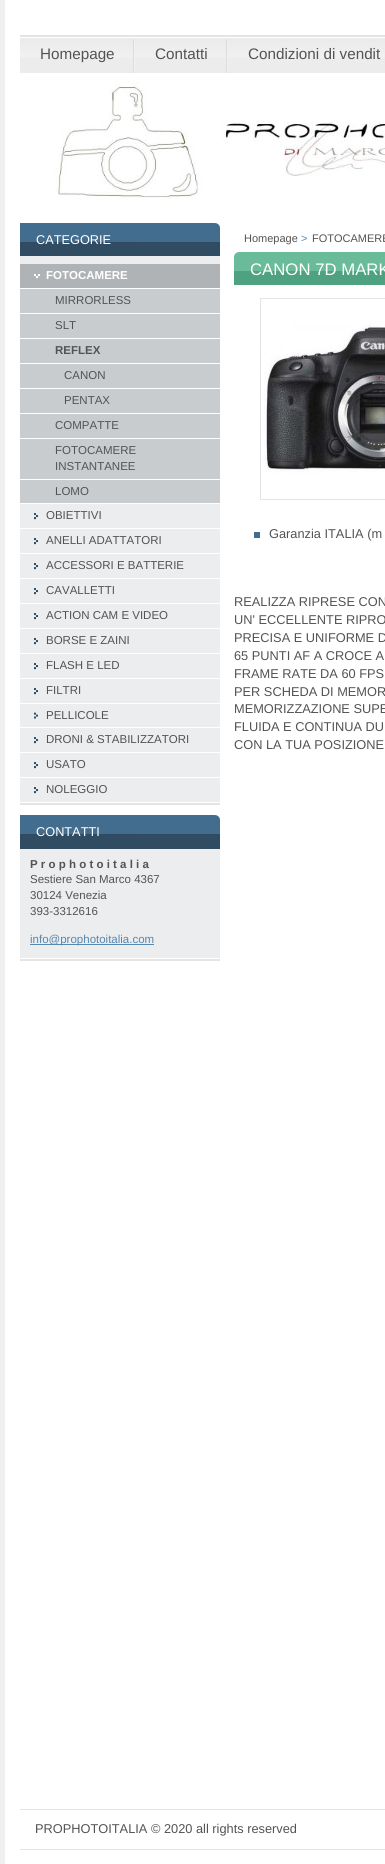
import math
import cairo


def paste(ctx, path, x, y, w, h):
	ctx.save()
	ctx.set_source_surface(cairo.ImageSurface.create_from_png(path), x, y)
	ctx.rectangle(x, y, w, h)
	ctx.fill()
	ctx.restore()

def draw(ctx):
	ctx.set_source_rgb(1, 1, 1)
	ctx.paint()
	ctx.set_source_rgb(0.937, 0.937, 0.937)
	ctx.rectangle(0, 0, 5, 1864)
	ctx.fill()
	ctx.set_source_rgb(0.925, 0.925, 0.925)
	ctx.rectangle(20, 58, 365, 15)
	ctx.fill()
	paste(ctx, 'media/1.png', 20, 35, 365, 23)
	paste(ctx, 'media/2.png', 133, 39, 2, 34)
	ctx.select_font_face('Liberation Sans')
	ctx.set_font_size(15.25)
	ctx.set_source_rgb(0.325, 0.325, 0.325)
	ctx.move_to(40, 59)
	ctx.show_text('Homepage')
	paste(ctx, 'media/2.png', 226, 39, 2, 34)
	ctx.move_to(155, 59)
	ctx.show_text('Contatti')
	ctx.move_to(248, 59)
	ctx.show_text('Condizioni di vendit')
	paste(ctx, 'media/3.png', 20, 73, 365, 140)
	ctx.set_source_rgb(0.886, 0.898, 0.91)
	ctx.rectangle(20, 803, 200, 2)
	ctx.fill()
	ctx.set_source_rgb(0.922, 0.929, 0.937)
	ctx.rectangle(20, 256, 200, 546)
	ctx.fill()
	ctx.set_source_rgb(0.184, 0.298, 0.388)
	ctx.rectangle(20, 243, 200, 13)
	ctx.fill()
	paste(ctx, 'media/4.png', 20, 223, 200, 20)
	ctx.set_font_size(12.75)
	ctx.set_source_rgb(1, 1, 1)
	ctx.move_to(36, 244)
	ctx.show_text('CATEGORIE')
	ctx.set_source_rgb(0.69, 0.702, 0.71)
	ctx.rectangle(20, 264, 200, 24)
	ctx.fill()
	paste(ctx, 'media/5.png', 34, 274, 6, 5)
	ctx.set_source_rgb(1, 1, 1)
	ctx.rectangle(20, 288, 200, 1)
	ctx.fill()
	ctx.select_font_face('Liberation Sans', cairo.FONT_SLANT_NORMAL, cairo.FONT_WEIGHT_BOLD)
	ctx.set_font_size(11.5)
	ctx.move_to(46, 279)
	ctx.show_text('FOTOCAMERE')
	ctx.set_source_rgb(0.788, 0.8, 0.812)
	ctx.rectangle(20, 289, 200, 214)
	ctx.fill()
	ctx.set_source_rgb(1, 1, 1)
	ctx.rectangle(20, 313, 200, 1)
	ctx.fill()
	ctx.select_font_face('Liberation Sans')
	ctx.set_source_rgb(0.325, 0.325, 0.325)
	ctx.move_to(55, 304)
	ctx.show_text('MIRRORLESS')
	ctx.set_source_rgb(1, 1, 1)
	ctx.rectangle(20, 338, 200, 1)
	ctx.fill()
	ctx.set_source_rgb(0.325, 0.325, 0.325)
	ctx.move_to(55, 329)
	ctx.show_text('SLT')
	ctx.set_source_rgb(1, 1, 1)
	ctx.rectangle(20, 363, 200, 1)
	ctx.fill()
	ctx.select_font_face('Liberation Sans', cairo.FONT_SLANT_NORMAL, cairo.FONT_WEIGHT_BOLD)
	ctx.set_source_rgb(0.325, 0.325, 0.325)
	ctx.move_to(55, 354)
	ctx.show_text('REFLEX')
	ctx.set_source_rgb(1, 1, 1)
	ctx.rectangle(20, 388, 200, 1)
	ctx.fill()
	ctx.select_font_face('Liberation Sans')
	ctx.set_source_rgb(0.325, 0.325, 0.325)
	ctx.move_to(64, 379)
	ctx.show_text('CANON')
	ctx.set_source_rgb(1, 1, 1)
	ctx.rectangle(20, 413, 200, 1)
	ctx.fill()
	ctx.set_source_rgb(0.325, 0.325, 0.325)
	ctx.move_to(64, 404)
	ctx.show_text('PENTAX')
	ctx.set_source_rgb(1, 1, 1)
	ctx.rectangle(20, 438, 200, 1)
	ctx.fill()
	ctx.set_source_rgb(0.325, 0.325, 0.325)
	ctx.move_to(55, 429)
	ctx.show_text('COMPATTE')
	ctx.set_source_rgb(1, 1, 1)
	ctx.rectangle(20, 479, 200, 1)
	ctx.fill()
	ctx.set_source_rgb(0.325, 0.325, 0.325)
	ctx.move_to(55, 454)
	ctx.show_text('FOTOCAMERE')
	ctx.move_to(55, 470)
	ctx.show_text('INSTANTANEE')
	ctx.set_source_rgb(1, 1, 1)
	ctx.rectangle(20, 503, 200, 1)
	ctx.fill()
	ctx.set_source_rgb(0.325, 0.325, 0.325)
	ctx.move_to(55, 495)
	ctx.show_text('LOMO')
	paste(ctx, 'media/6.png', 34, 513, 4, 7)
	ctx.set_source_rgb(1, 1, 1)
	ctx.rectangle(20, 528, 200, 1)
	ctx.fill()
	ctx.set_source_rgb(0.325, 0.325, 0.325)
	ctx.move_to(46, 519)
	ctx.show_text('OBIETTIVI')
	paste(ctx, 'media/6.png', 34, 538, 4, 7)
	ctx.set_source_rgb(1, 1, 1)
	ctx.rectangle(20, 553, 200, 1)
	ctx.fill()
	ctx.set_source_rgb(0.325, 0.325, 0.325)
	ctx.move_to(46, 544)
	ctx.show_text('ANELLI ADATTATORI')
	paste(ctx, 'media/6.png', 34, 563, 4, 7)
	ctx.set_source_rgb(1, 1, 1)
	ctx.rectangle(20, 578, 200, 1)
	ctx.fill()
	ctx.set_source_rgb(0.325, 0.325, 0.325)
	ctx.move_to(46, 569)
	ctx.show_text('ACCESSORI E BATTERIE')
	paste(ctx, 'media/6.png', 34, 588, 4, 7)
	ctx.set_source_rgb(1, 1, 1)
	ctx.rectangle(20, 603, 200, 1)
	ctx.fill()
	ctx.set_source_rgb(0.325, 0.325, 0.325)
	ctx.move_to(46, 594)
	ctx.show_text('CAVALLETTI')
	paste(ctx, 'media/6.png', 34, 613, 4, 7)
	ctx.set_source_rgb(1, 1, 1)
	ctx.rectangle(20, 628, 200, 1)
	ctx.fill()
	ctx.set_source_rgb(0.325, 0.325, 0.325)
	ctx.move_to(46, 619)
	ctx.show_text('ACTION CAM E VIDEO')
	paste(ctx, 'media/6.png', 34, 638, 4, 7)
	ctx.set_source_rgb(1, 1, 1)
	ctx.rectangle(20, 653, 200, 1)
	ctx.fill()
	ctx.set_source_rgb(0.325, 0.325, 0.325)
	ctx.move_to(46, 644)
	ctx.show_text('BORSE E ZAINI')
	paste(ctx, 'media/6.png', 34, 663, 4, 7)
	ctx.set_source_rgb(1, 1, 1)
	ctx.rectangle(20, 678, 200, 1)
	ctx.fill()
	ctx.set_source_rgb(0.325, 0.325, 0.325)
	ctx.move_to(46, 669)
	ctx.show_text('FLASH E LED')
	paste(ctx, 'media/6.png', 34, 688, 4, 7)
	ctx.set_source_rgb(1, 1, 1)
	ctx.rectangle(20, 703, 200, 1)
	ctx.fill()
	ctx.set_source_rgb(0.325, 0.325, 0.325)
	ctx.move_to(46, 694)
	ctx.show_text('FILTRI')
	paste(ctx, 'media/7.png', 34, 712, 4, 7)
	ctx.set_source_rgb(1, 1, 1)
	ctx.rectangle(20, 727, 200, 1)
	ctx.fill()
	ctx.set_source_rgb(0.325, 0.325, 0.325)
	ctx.move_to(46, 719)
	ctx.show_text('PELLICOLE')
	paste(ctx, 'media/6.png', 34, 737, 4, 7)
	ctx.set_source_rgb(1, 1, 1)
	ctx.rectangle(20, 752, 200, 1)
	ctx.fill()
	ctx.set_source_rgb(0.325, 0.325, 0.325)
	ctx.move_to(46, 743)
	ctx.show_text('DRONI & STABILIZZATORI')
	paste(ctx, 'media/6.png', 34, 762, 4, 7)
	ctx.set_source_rgb(1, 1, 1)
	ctx.rectangle(20, 777, 200, 1)
	ctx.fill()
	ctx.set_source_rgb(0.325, 0.325, 0.325)
	ctx.move_to(46, 768)
	ctx.show_text('USATO')
	paste(ctx, 'media/6.png', 34, 787, 4, 7)
	ctx.move_to(46, 793)
	ctx.show_text('NOLEGGIO')
	ctx.set_source_rgb(0.886, 0.898, 0.91)
	ctx.rectangle(20, 959, 200, 2)
	ctx.fill()
	ctx.set_source_rgb(0.922, 0.929, 0.937)
	ctx.rectangle(20, 849, 200, 109)
	ctx.fill()
	ctx.set_source_rgb(0.184, 0.298, 0.388)
	ctx.rectangle(20, 835, 200, 14)
	ctx.fill()
	paste(ctx, 'media/4.png', 20, 815, 200, 20)
	ctx.set_font_size(12.75)
	ctx.set_source_rgb(1, 1, 1)
	ctx.move_to(36, 836)
	ctx.show_text('CONTATTI')
	ctx.select_font_face('Liberation Sans', cairo.FONT_SLANT_NORMAL, cairo.FONT_WEIGHT_BOLD)
	ctx.set_font_size(11.5)
	ctx.set_source_rgb(0.325, 0.325, 0.325)
	ctx.move_to(30, 868)
	ctx.show_text('P r o p h o t o i t a l i a')
	ctx.select_font_face('Liberation Sans')
	for x, y, s in [
		(30, 883, 'Sestiere San Marco 4367'),
		(30, 899, '30124 Venezia'),
		(30, 915, '393-3312616'),
	]:
		ctx.move_to(x, y)
		ctx.show_text(s)
	ctx.set_source_rgb(0.333, 0.529, 0.686)
	ctx.rectangle(30, 944, 124, 1)
	ctx.fill()
	ctx.move_to(30, 943)
	ctx.show_text('info@prophotoitalia.com')
	ctx.set_font_size(11)
	ctx.set_source_rgb(0.325, 0.325, 0.325)
	ctx.move_to(244, 242)
	ctx.show_text('Homepage')
	ctx.set_source_rgb(0.333, 0.529, 0.686)
	ctx.move_to(301, 242)
	ctx.show_text('>')
	ctx.set_source_rgb(0.325, 0.325, 0.325)
	ctx.move_to(312, 242)
	ctx.show_text('FOTOCAMERE')
	ctx.set_source_rgb(0.31, 0.635, 0.506)
	ctx.rectangle(234, 271, 151, 14)
	ctx.fill()
	paste(ctx, 'media/8.png', 234, 252, 151, 19)
	ctx.set_font_size(16.75)
	ctx.set_source_rgb(1, 1, 1)
	ctx.move_to(250, 275)
	ctx.show_text('CANON 7D MARK')
	ctx.rectangle(260.5, 298.5, 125, 201)
	ctx.set_source_rgb(0.886, 0.898, 0.91)
	ctx.set_line_width(1)
	ctx.stroke()
	paste(ctx, 'media/9.png', 262, 323, 123, 152)
	ctx.set_source_rgb(0.263, 0.427, 0.561)
	ctx.rectangle(254, 532, 6, 6)
	ctx.fill()
	ctx.set_font_size(12.8)
	ctx.set_source_rgb(0.325, 0.325, 0.325)
	for x, y, s in [
		(269, 538, 'Garanzia ITALIA (m'),
		(234, 606, 'REALIZZA RIPRESE CON'),
		(234, 624, 'UN\' ECCELLENTE RIPRO'),
		(234, 642, 'PRECISA E UNIFORME D'),
		(234, 660, '65 PUNTI AF A CROCE A'),
		(234, 678, 'FRAME RATE DA 60 FPS'),
		(234, 696, 'PER SCHEDA DI MEMOR'),
		(234, 713, 'MEMORIZZAZIONE SUPE'),
		(234, 731, 'FLUIDA E CONTINUA DU'),
		(234, 749, 'CON LA TUA POSIZIONE'),
	]:
		ctx.move_to(x, y)
		ctx.show_text(s)
	ctx.set_source_rgb(0.886, 0.898, 0.91)
	ctx.rectangle(20, 1809, 365, 1)
	ctx.fill()
	ctx.rectangle(20, 1849, 365, 1)
	ctx.fill()
	ctx.set_source_rgb(0.325, 0.325, 0.325)
	ctx.move_to(35, 1833)
	ctx.show_text('PROPHOTOITALIA © 2020 all rights reserved')


surface = cairo.ImageSurface(cairo.FORMAT_RGB24, 385, 1864)
ctx = cairo.Context(surface)
options = cairo.FontOptions()
options.set_hint_metrics(cairo.HINT_METRICS_OFF)
options.set_hint_style(cairo.HINT_STYLE_NONE)
ctx.set_font_options(options)
ctx.set_miter_limit(4)
draw(ctx)
surface.write_to_png('image.png')
